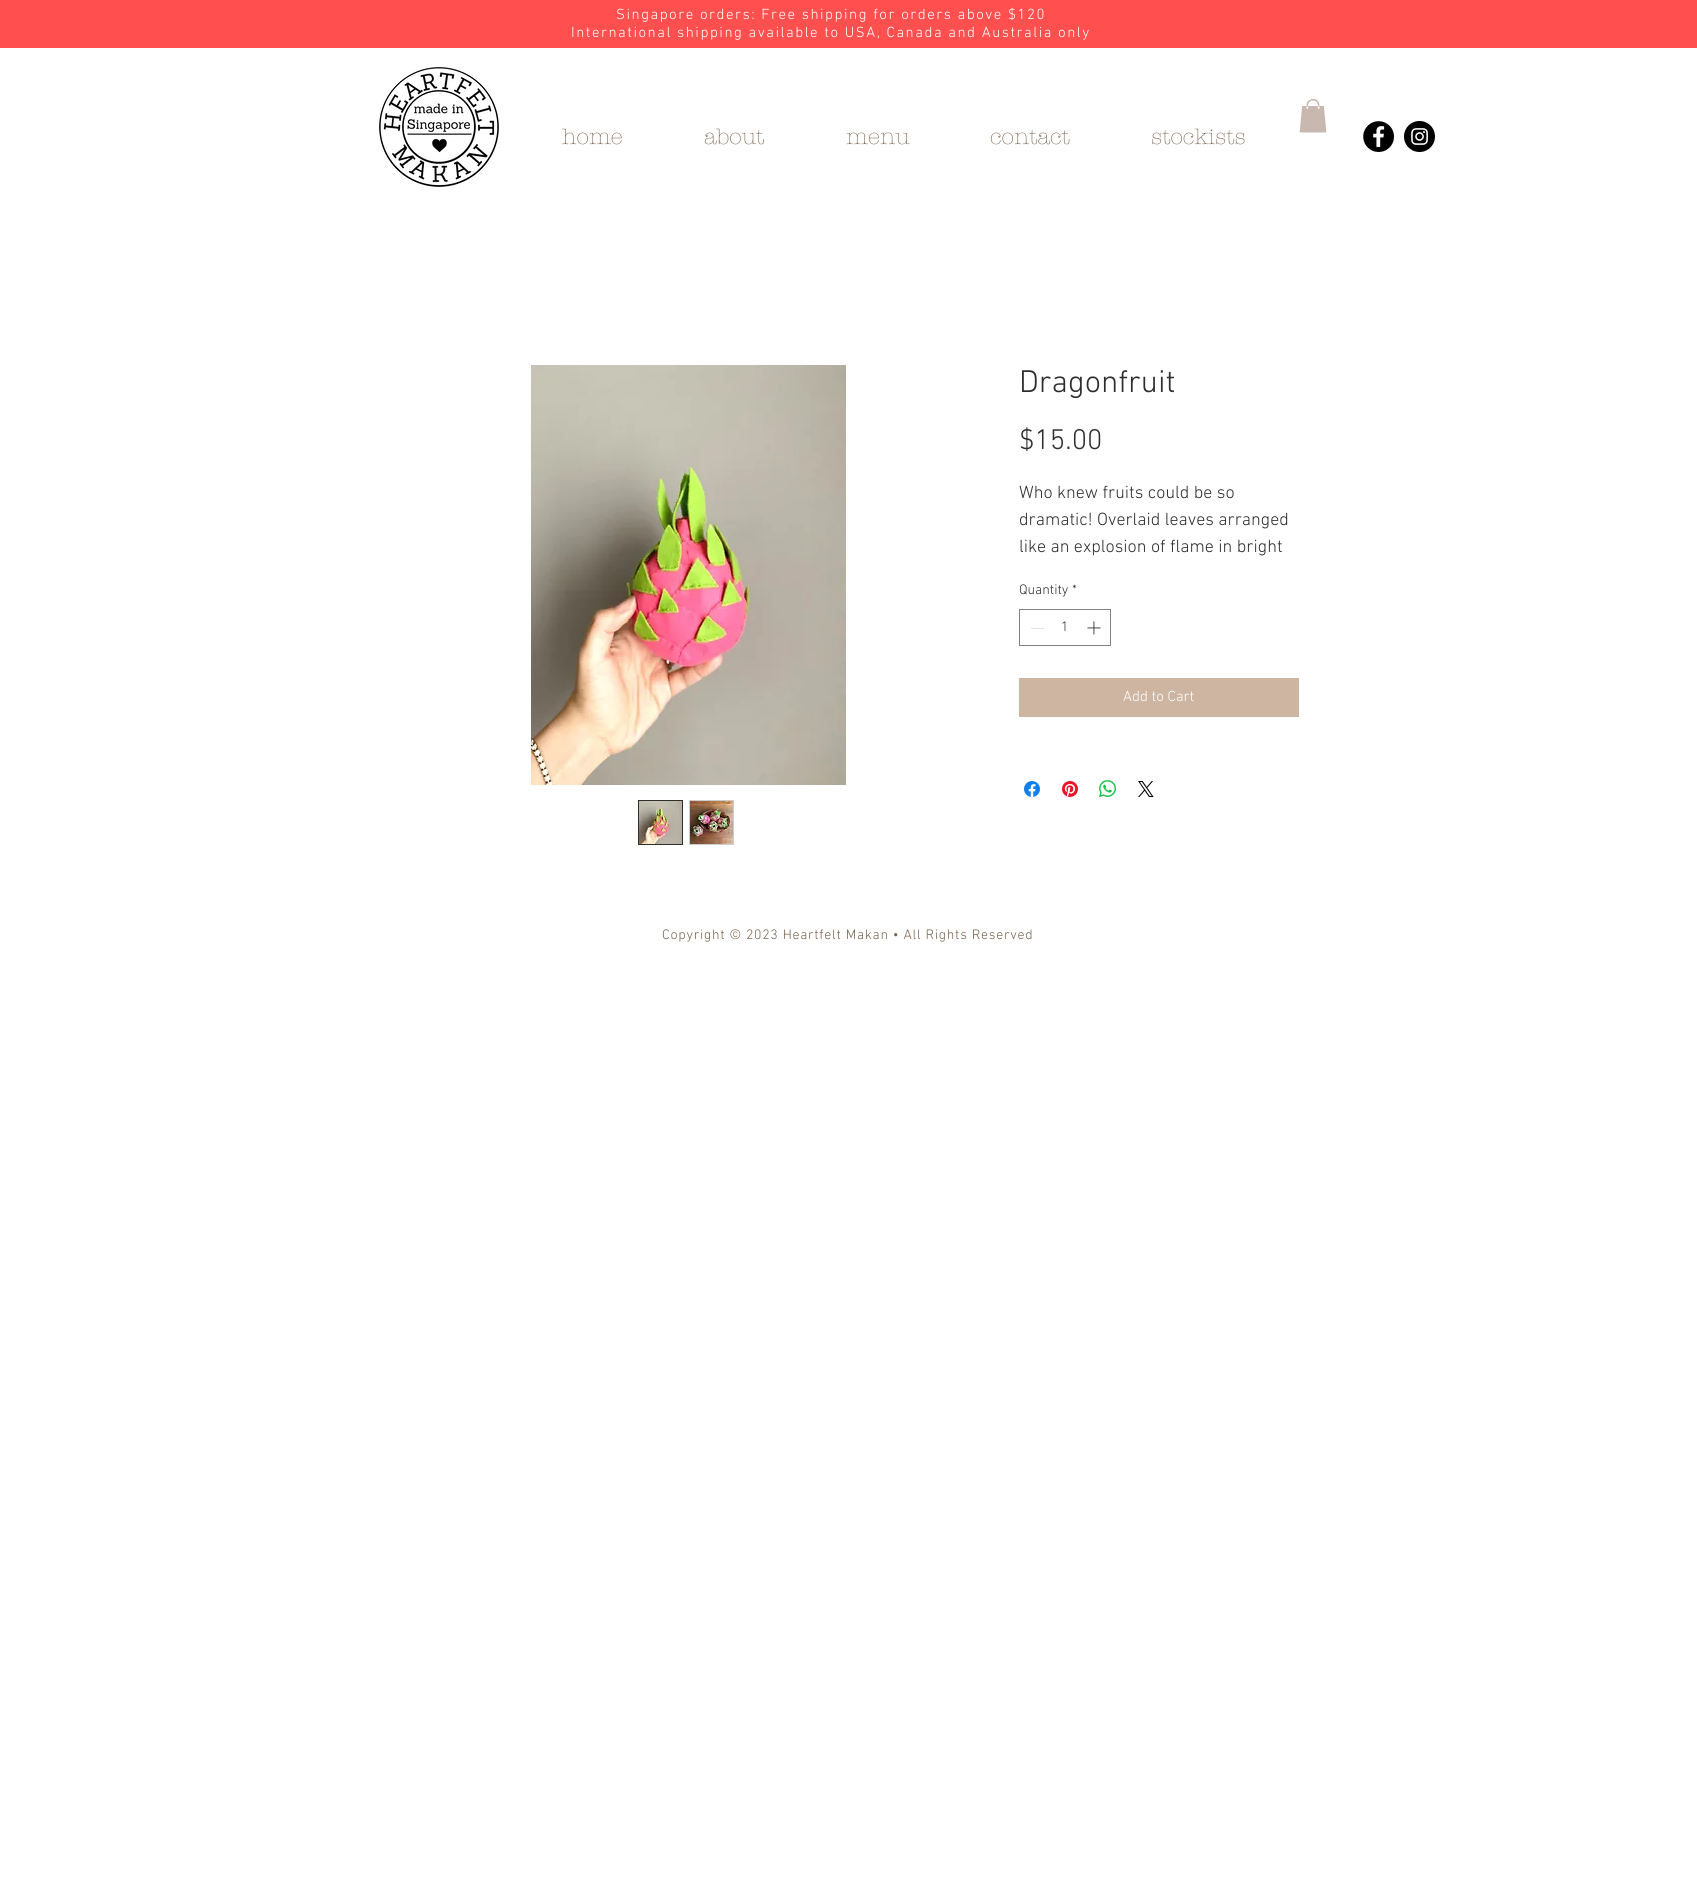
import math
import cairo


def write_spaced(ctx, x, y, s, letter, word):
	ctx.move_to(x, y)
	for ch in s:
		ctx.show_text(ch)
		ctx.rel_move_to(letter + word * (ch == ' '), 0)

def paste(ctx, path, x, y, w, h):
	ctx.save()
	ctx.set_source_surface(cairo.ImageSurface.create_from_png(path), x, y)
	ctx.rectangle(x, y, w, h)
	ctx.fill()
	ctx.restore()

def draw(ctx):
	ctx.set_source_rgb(1, 1, 1)
	ctx.paint()
	ctx.set_source_rgb(1, 0.31, 0.31)
	ctx.rectangle(0, 0, 1697, 48)
	ctx.fill()
	ctx.select_font_face('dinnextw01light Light')
	ctx.set_font_size(15)
	ctx.set_source_rgb(1, 1, 1)
	write_spaced(ctx, 616, 19, 'Singapore orders: Free shipping for orders above $120', 1.5, 0)
	write_spaced(ctx, 571, 37, 'International shipping available to USA, Canada and Australia only', 1.5, 0)
	paste(ctx, 'media/1.png', 379, 67, 120, 120)
	ctx.select_font_face('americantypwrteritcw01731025 Light')
	ctx.set_font_size(22)
	ctx.set_source_rgb(0.478, 0.388, 0.306)
	for x, y, s in [
		(562, 144, 'home'),
		(704, 144, 'about'),
		(846, 144, 'menu'),
		(990, 144, 'contact'),
		(1151, 144, 'stockists'),
	]:
		ctx.move_to(x, y)
		ctx.show_text(s)
	paste(ctx, 'media/2.png', 1363, 121, 31, 31)
	paste(ctx, 'media/3.png', 1404, 121, 31, 31)
	paste(ctx, 'media/4.png', 1299, 99, 28, 34)
	paste(ctx, 'media/5.png', 531, 365, 315, 420)
	ctx.rectangle(638.5, 800.5, 44, 44)
	ctx.set_source_rgb(0.184, 0.18, 0.18)
	ctx.set_line_width(1)
	ctx.stroke()
	paste(ctx, 'media/6.png', 639, 801, 43, 43)
	ctx.rectangle(689.5, 800.5, 44, 44)
	ctx.set_source_rgb(0.8, 0.8, 0.8)
	ctx.stroke()
	paste(ctx, 'media/7.png', 690, 801, 43, 43)
	ctx.select_font_face('dinnextw01light Light')
	ctx.set_font_size(32)
	ctx.set_source_rgb(0.184, 0.18, 0.18)
	ctx.move_to(1019, 392)
	ctx.show_text('Dragonfruit')
	ctx.set_font_size(29)
	ctx.move_to(1019, 449)
	ctx.show_text('$15.00')
	ctx.set_font_size(18)
	for x, y, s in [
		(1019, 498, 'Who knew fruits could be so'),
		(1019, 525, 'dramatic! Overlaid leaves arranged'),
		(1019, 552, 'like an explosion of flame in bright'),
	]:
		ctx.move_to(x, y)
		ctx.show_text(s)
	ctx.set_font_size(14)
	ctx.move_to(1019, 594)
	ctx.show_text('Quantity')
	ctx.move_to(1072, 594)
	ctx.show_text('*')
	ctx.rectangle(1019.5, 609.5, 91, 36)
	ctx.set_source_rgb(0.51, 0.51, 0.51)
	ctx.stroke()
	ctx.set_source_rgb(0.89, 0.89, 0.89)
	ctx.rectangle(1031, 628, 13, 1)
	ctx.fill()
	ctx.set_source_rgb(0.184, 0.18, 0.18)
	ctx.move_to(1061, 631)
	ctx.show_text('1')
	paste(ctx, 'media/8.png', 1087, 621, 14, 14)
	ctx.set_source_rgb(0.808, 0.71, 0.635)
	ctx.rectangle(1019, 678, 280, 39)
	ctx.fill()
	ctx.set_font_size(15)
	ctx.set_source_rgb(1, 1, 1)
	ctx.move_to(1123, 701)
	ctx.show_text('Add to Cart')
	paste(ctx, 'media/9.png', 1024, 781, 16, 16)
	paste(ctx, 'media/10.png', 1062, 781, 16, 16)
	paste(ctx, 'media/11.png', 1099, 780, 17, 17)
	paste(ctx, 'media/12.png', 1138, 781, 16, 16)
	ctx.set_font_size(14)
	ctx.set_source_rgb(0.478, 0.388, 0.306)
	write_spaced(ctx, 662, 939, 'Copyright © 2023 Heartfelt Makan • All Rights Reserved', 0.7, 0)


surface = cairo.ImageSurface(cairo.FORMAT_RGB24, 1697, 1890)
ctx = cairo.Context(surface)
options = cairo.FontOptions()
options.set_hint_metrics(cairo.HINT_METRICS_OFF)
options.set_hint_style(cairo.HINT_STYLE_NONE)
ctx.set_font_options(options)
ctx.set_miter_limit(4)
draw(ctx)
surface.write_to_png('image.png')
